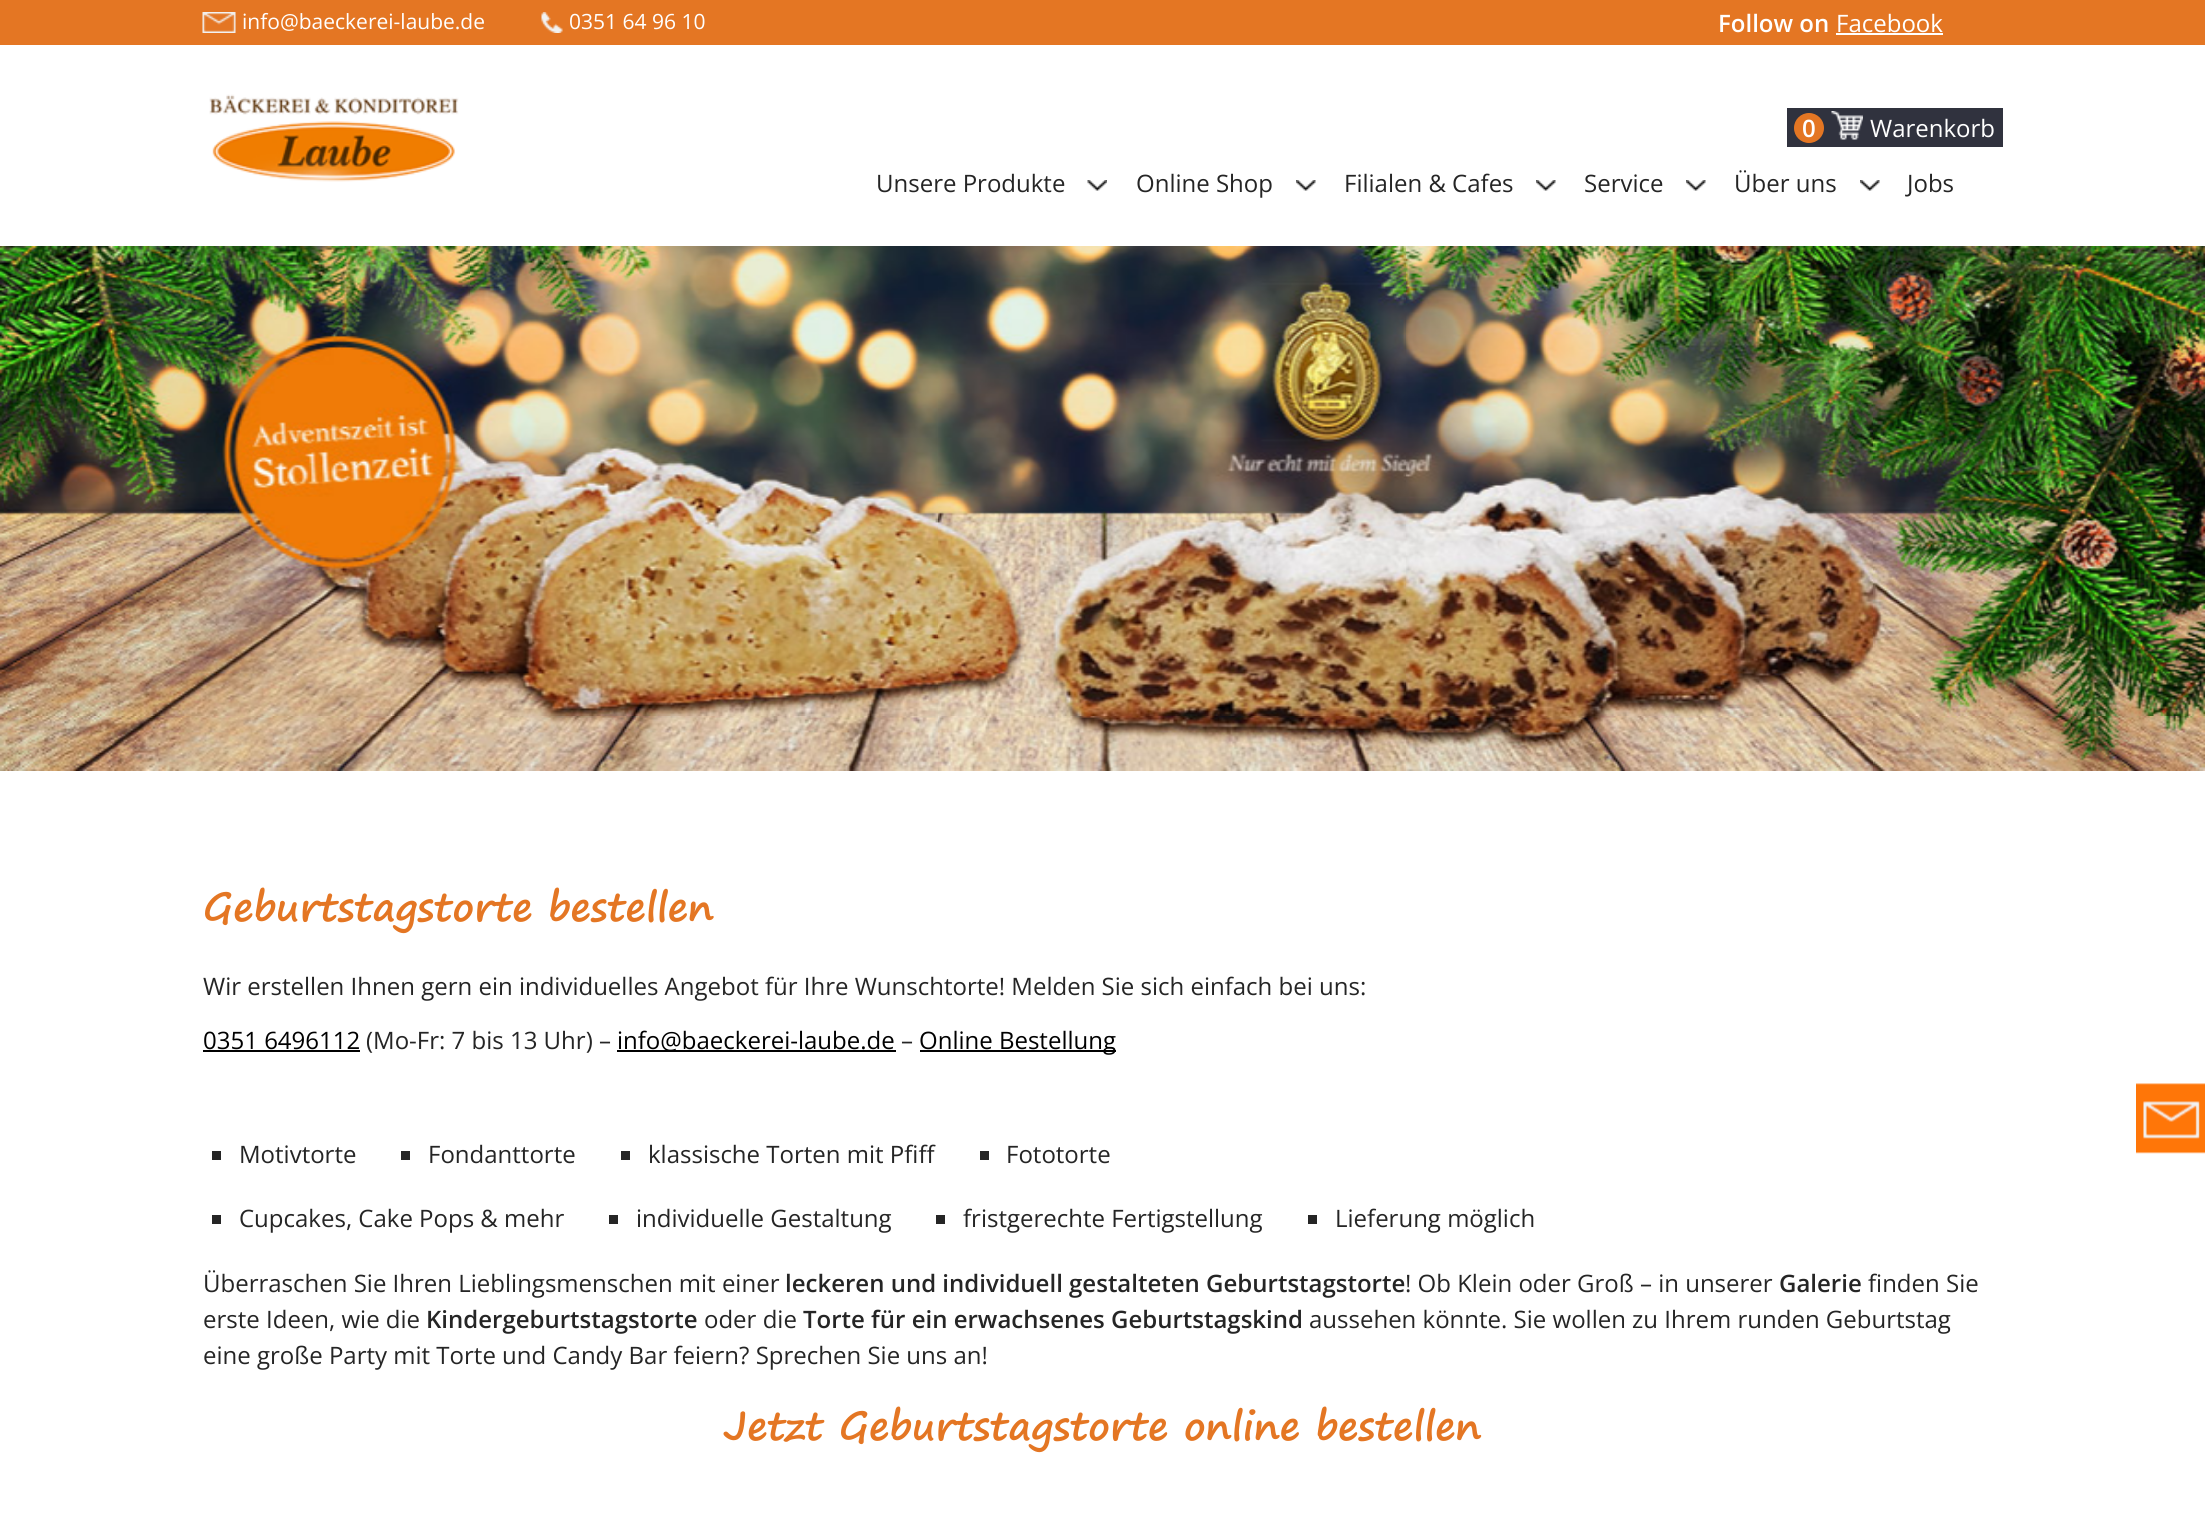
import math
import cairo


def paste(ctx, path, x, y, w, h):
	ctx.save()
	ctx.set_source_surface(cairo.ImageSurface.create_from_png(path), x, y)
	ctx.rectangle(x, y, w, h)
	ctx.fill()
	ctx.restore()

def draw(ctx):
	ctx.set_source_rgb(1, 1, 1)
	ctx.paint()
	ctx.set_source_rgb(0.894, 0.463, 0.137)
	ctx.rectangle(0, 0, 2205, 45)
	ctx.fill()
	paste(ctx, 'media/1.png', 202, 12, 34, 21)
	ctx.select_font_face('Open Sans')
	ctx.set_font_size(21)
	ctx.set_source_rgb(1, 1, 1)
	ctx.move_to(242, 29)
	ctx.show_text('info@baeckerei-laube.de')
	paste(ctx, 'media/2.png', 541, 12, 22, 21)
	ctx.move_to(569, 29)
	ctx.show_text('0351 64 96 10')
	ctx.select_font_face('Open Sans SemiBold')
	ctx.set_font_size(24)
	ctx.move_to(1718, 32)
	ctx.show_text('Follow on')
	ctx.select_font_face('Open Sans')
	ctx.move_to(1836, 32)
	ctx.show_text('Facebook')
	ctx.rectangle(1836, 33, 107, 2)
	ctx.fill()
	paste(ctx, 'media/3.png', 209, 94, 250, 88)
	ctx.set_source_rgb(0.188, 0.196, 0.243)
	ctx.rectangle(1787, 108, 216, 39)
	ctx.fill()
	ctx.set_source_rgb(0.894, 0.463, 0.137)
	ctx.arc(1809, 128, 15, 0, 2 * math.pi)
	ctx.fill()
	ctx.select_font_face('Open Sans SemiBold')
	ctx.set_source_rgb(1, 1, 1)
	ctx.move_to(1802, 137)
	ctx.show_text('0')
	paste(ctx, 'media/4.png', 1831, 111, 32, 29)
	ctx.select_font_face('Open Sans')
	ctx.move_to(1870, 137)
	ctx.show_text('Warenkorb')
	ctx.set_source_rgb(0.145, 0.145, 0.145)
	ctx.move_to(876, 192)
	ctx.show_text('Unsere Produkte')
	paste(ctx, 'media/5.png', 1087, 180, 20, 11)
	ctx.move_to(1136, 192)
	ctx.show_text('Online Shop')
	paste(ctx, 'media/6.png', 1296, 180, 20, 11)
	ctx.move_to(1344, 192)
	ctx.show_text('Filialen & Cafes')
	paste(ctx, 'media/6.png', 1536, 180, 20, 11)
	ctx.move_to(1584, 192)
	ctx.show_text('Service')
	paste(ctx, 'media/6.png', 1686, 180, 20, 11)
	ctx.move_to(1734, 192)
	ctx.show_text('Über uns')
	paste(ctx, 'media/7.png', 1860, 180, 20, 11)
	ctx.move_to(1907, 192)
	ctx.show_text('Jobs')
	paste(ctx, 'media/8.png', 2136, 1083, 69, 71)
	paste(ctx, 'media/9.png', 0, 246, 2205, 525)
	ctx.select_font_face('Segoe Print', cairo.FONT_SLANT_NORMAL, cairo.FONT_WEIGHT_BOLD)
	ctx.set_font_size(39)
	ctx.set_source_rgb(0.894, 0.463, 0.137)
	ctx.move_to(203, 921)
	ctx.show_text('Geburtstagstorte bestellen')
	ctx.select_font_face('Open Sans')
	ctx.set_font_size(24)
	ctx.set_source_rgb(0.145, 0.145, 0.145)
	ctx.move_to(203, 995)
	ctx.show_text('Wir erstellen Ihnen gern ein individuelles Angebot für Ihre Wunschtorte! Melden Sie sich einfach bei uns:')
	ctx.set_source_rgb(0, 0, 0)
	ctx.move_to(203, 1049)
	ctx.show_text('0351 6496112')
	ctx.rectangle(203, 1050, 157, 2)
	ctx.fill()
	ctx.set_source_rgb(0.145, 0.145, 0.145)
	ctx.move_to(366, 1049)
	ctx.show_text('(Mo-Fr: 7 bis 13 Uhr) –')
	ctx.set_source_rgb(0, 0, 0)
	ctx.rectangle(617, 1050, 279, 2)
	ctx.fill()
	ctx.move_to(617, 1049)
	ctx.show_text('info@baeckerei-laube.de')
	ctx.set_source_rgb(0.145, 0.145, 0.145)
	ctx.move_to(901, 1049)
	ctx.show_text('–')
	ctx.set_source_rgb(0, 0, 0)
	ctx.rectangle(920, 1050, 196, 2)
	ctx.fill()
	ctx.move_to(919, 1049)
	ctx.show_text('Online Bestellung')
	ctx.set_source_rgb(0.145, 0.145, 0.145)
	ctx.rectangle(212, 1151, 9, 9)
	ctx.fill()
	ctx.move_to(239, 1163)
	ctx.show_text('Motivtorte')
	ctx.rectangle(401, 1151, 9, 9)
	ctx.fill()
	ctx.move_to(428, 1163)
	ctx.show_text('Fondanttorte')
	ctx.rectangle(621, 1151, 9, 9)
	ctx.fill()
	ctx.move_to(648, 1163)
	ctx.show_text('klassische Torten mit Pfiff')
	ctx.rectangle(980, 1151, 9, 9)
	ctx.fill()
	ctx.move_to(1006, 1163)
	ctx.show_text('Fototorte')
	ctx.rectangle(212, 1215, 9, 9)
	ctx.fill()
	ctx.move_to(239, 1227)
	ctx.show_text('Cupcakes, Cake Pops & mehr')
	ctx.rectangle(609, 1215, 9, 9)
	ctx.fill()
	ctx.move_to(636, 1227)
	ctx.show_text('individuelle Gestaltung')
	ctx.rectangle(936, 1215, 9, 9)
	ctx.fill()
	ctx.move_to(963, 1227)
	ctx.show_text('fristgerechte Fertigstellung')
	ctx.rectangle(1308, 1215, 9, 9)
	ctx.fill()
	ctx.move_to(1335, 1227)
	ctx.show_text('Lieferung möglich')
	ctx.move_to(203, 1292)
	ctx.show_text('Überraschen Sie Ihren Lieblingsmenschen mit einer')
	ctx.select_font_face('Open Sans SemiBold')
	ctx.move_to(785, 1292)
	ctx.show_text('leckeren und individuell gestalteten Geburtstagstorte')
	ctx.select_font_face('Open Sans')
	ctx.move_to(1405, 1292)
	ctx.show_text('! Ob Klein oder Groß – in unserer')
	ctx.select_font_face('Open Sans SemiBold')
	ctx.move_to(1779, 1292)
	ctx.show_text('Galerie')
	ctx.select_font_face('Open Sans')
	ctx.move_to(1868, 1292)
	ctx.show_text('finden Sie')
	ctx.move_to(203, 1328)
	ctx.show_text('erste Ideen, wie die')
	ctx.select_font_face('Open Sans SemiBold')
	ctx.move_to(426, 1328)
	ctx.show_text('Kindergeburtstagstorte')
	ctx.select_font_face('Open Sans')
	ctx.move_to(704, 1328)
	ctx.show_text('oder die')
	ctx.select_font_face('Open Sans SemiBold')
	ctx.move_to(803, 1328)
	ctx.show_text('Torte für ein erwachsenes Geburtstagskind')
	ctx.select_font_face('Open Sans')
	ctx.move_to(1309, 1328)
	ctx.show_text('aussehen könnte. Sie wollen zu Ihrem runden Geburtstag')
	ctx.move_to(203, 1364)
	ctx.show_text('eine große Party mit Torte und Candy Bar feiern? Sprechen Sie uns an!')
	ctx.select_font_face('Segoe Print', cairo.FONT_SLANT_NORMAL, cairo.FONT_WEIGHT_BOLD)
	ctx.set_font_size(39)
	ctx.set_source_rgb(0.894, 0.463, 0.137)
	ctx.move_to(724, 1440)
	ctx.show_text('Jetzt Geburtstagstorte online bestellen')


surface = cairo.ImageSurface(cairo.FORMAT_RGB24, 2205, 1525)
ctx = cairo.Context(surface)
options = cairo.FontOptions()
options.set_hint_metrics(cairo.HINT_METRICS_OFF)
options.set_hint_style(cairo.HINT_STYLE_NONE)
ctx.set_font_options(options)
ctx.set_miter_limit(4)
draw(ctx)
surface.write_to_png('image.png')
